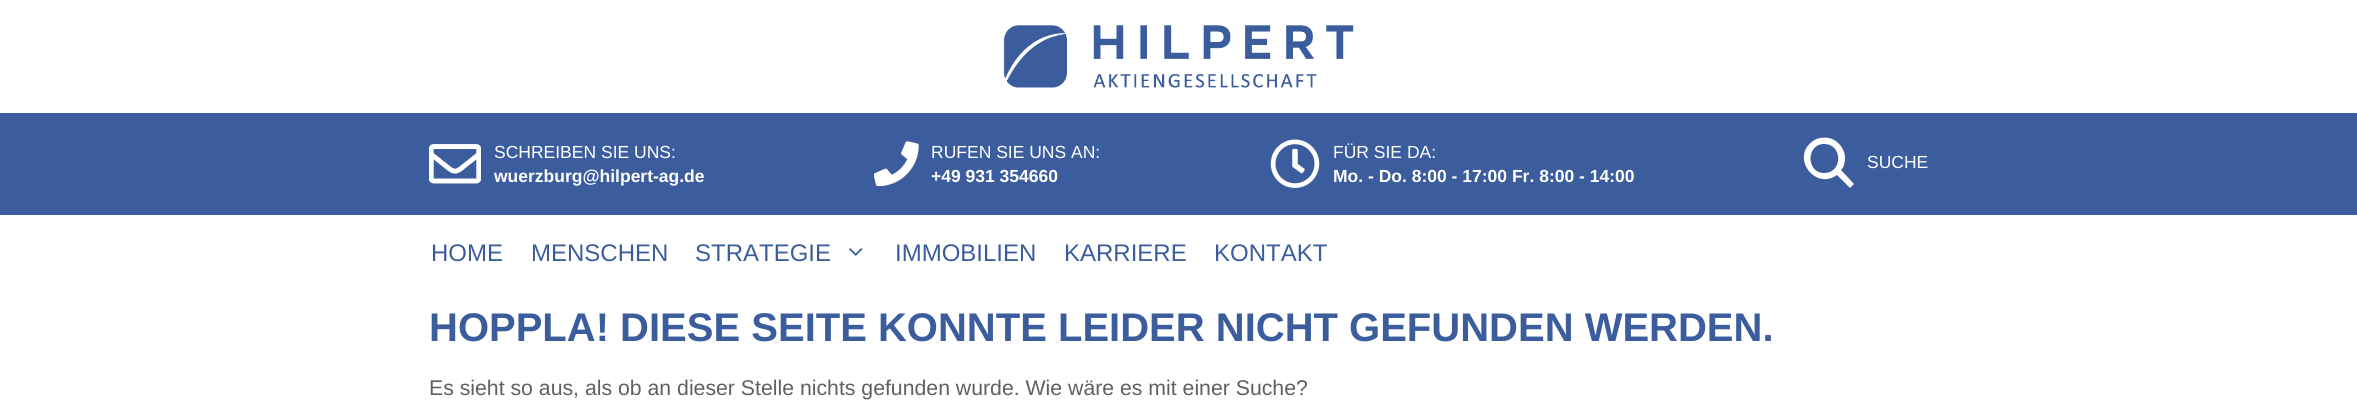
import math
import cairo


def paste(ctx, path, x, y, w, h):
	ctx.save()
	ctx.set_source_surface(cairo.ImageSurface.create_from_png(path), x, y)
	ctx.rectangle(x, y, w, h)
	ctx.fill()
	ctx.restore()

def draw(ctx):
	ctx.set_source_rgb(1, 1, 1)
	ctx.paint()
	paste(ctx, 'media/1.png', 1003, 25, 351, 63)
	ctx.set_source_rgb(0.235, 0.365, 0.616)
	ctx.rectangle(0, 113, 2357, 102)
	ctx.fill()
	paste(ctx, 'media/2.png', 429, 144, 52, 40)
	ctx.select_font_face('Liberation Sans')
	ctx.set_font_size(17.5)
	ctx.set_source_rgb(1, 1, 1)
	ctx.move_to(494, 158)
	ctx.show_text('SCHREIBEN SIE UNS:')
	ctx.select_font_face('Liberation Sans', cairo.FONT_SLANT_NORMAL, cairo.FONT_WEIGHT_BOLD)
	ctx.move_to(494, 182)
	ctx.show_text('wuerzburg@hilpert-ag.de')
	paste(ctx, 'media/3.png', 874, 141, 45, 45)
	ctx.select_font_face('Liberation Sans')
	ctx.move_to(931, 158)
	ctx.show_text('RUFEN SIE UNS AN:')
	ctx.select_font_face('Liberation Sans', cairo.FONT_SLANT_NORMAL, cairo.FONT_WEIGHT_BOLD)
	ctx.move_to(931, 182)
	ctx.show_text('+49 931 354660')
	paste(ctx, 'media/4.png', 1270, 139, 50, 49)
	ctx.select_font_face('Liberation Sans')
	ctx.move_to(1333, 158)
	ctx.show_text('FÜR SIE DA:')
	ctx.select_font_face('Liberation Sans', cairo.FONT_SLANT_NORMAL, cairo.FONT_WEIGHT_BOLD)
	ctx.move_to(1333, 182)
	ctx.show_text('Mo. - Do. 8:00 - 17:00 Fr. 8:00 - 14:00')
	ctx.new_path()
	ctx.move_to(1845, 158)
	ctx.curve_to(1845, 163, 1844, 167, 1841, 170)
	ctx.line_to(1854, 184)
	ctx.line_to(1850, 188)
	ctx.line_to(1837, 175)
	ctx.curve_to(1815, 191, 1790, 157, 1813, 141)
	ctx.curve_to(1817, 138, 1823, 137, 1829, 138)
	ctx.curve_to(1838, 140, 1845, 149, 1845, 158)
	ctx.close_path()
	ctx.move_to(1824, 173)
	ctx.curve_to(1843, 173, 1843, 144, 1824, 144)
	ctx.curve_to(1806, 144, 1806, 173, 1824, 173)
	ctx.close_path()
	ctx.fill()
	ctx.select_font_face('Liberation Sans')
	ctx.move_to(1867, 168)
	ctx.show_text('SUCHE')
	ctx.set_font_size(24)
	ctx.set_source_rgb(0.235, 0.365, 0.616)
	for x, y, s in [
		(431, 261, 'HOME'),
		(531, 261, 'MENSCHEN'),
		(695, 261, 'STRATEGIE'),
	]:
		ctx.move_to(x, y)
		ctx.show_text(s)
	paste(ctx, 'media/5.png', 849, 248, 14, 8)
	for x, y, s in [
		(895, 261, 'IMMOBILIEN'),
		(1064, 261, 'KARRIERE'),
		(1214, 261, 'KONTAKT'),
	]:
		ctx.move_to(x, y)
		ctx.show_text(s)
	ctx.select_font_face('Liberation Sans', cairo.FONT_SLANT_NORMAL, cairo.FONT_WEIGHT_BOLD)
	ctx.set_font_size(40)
	ctx.move_to(429, 341)
	ctx.show_text('HOPPLA! DIESE SEITE KONNTE LEIDER NICHT GEFUNDEN WERDEN.')
	ctx.select_font_face('Liberation Sans')
	ctx.set_font_size(21.25)
	ctx.set_source_rgb(0.38, 0.373, 0.376)
	ctx.move_to(429, 395)
	ctx.show_text('Es sieht so aus, als ob an dieser Stelle nichts gefunden wurde. Wie wäre es mit einer Suche?')


surface = cairo.ImageSurface(cairo.FORMAT_RGB24, 2357, 410)
ctx = cairo.Context(surface)
options = cairo.FontOptions()
options.set_hint_metrics(cairo.HINT_METRICS_OFF)
options.set_hint_style(cairo.HINT_STYLE_NONE)
ctx.set_font_options(options)
ctx.set_miter_limit(4)
draw(ctx)
surface.write_to_png('image.png')
